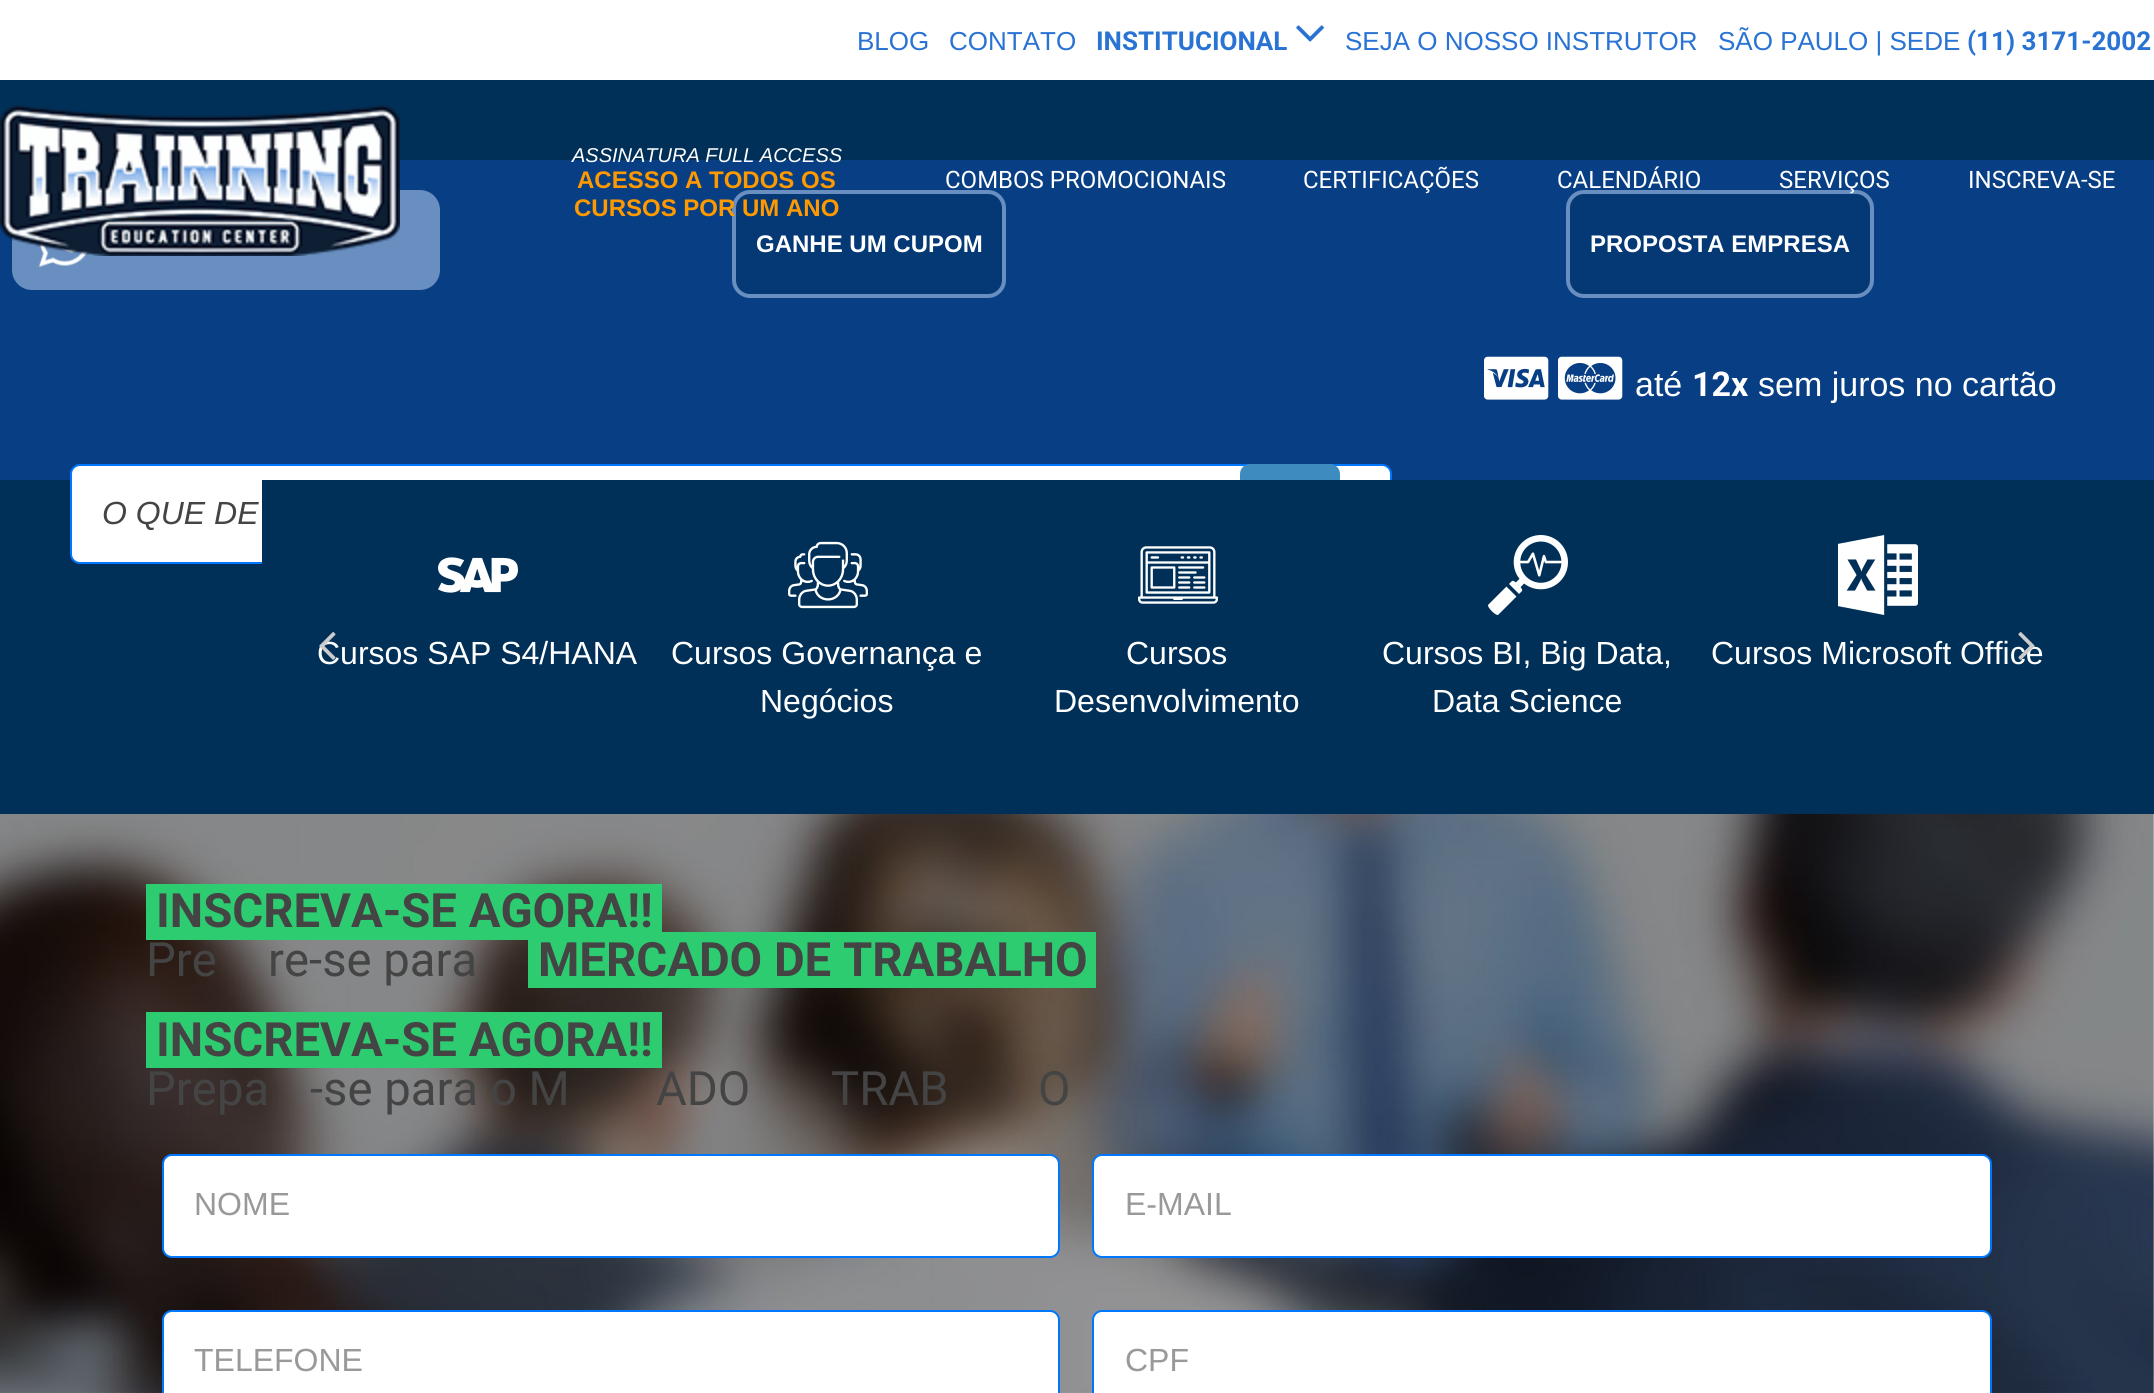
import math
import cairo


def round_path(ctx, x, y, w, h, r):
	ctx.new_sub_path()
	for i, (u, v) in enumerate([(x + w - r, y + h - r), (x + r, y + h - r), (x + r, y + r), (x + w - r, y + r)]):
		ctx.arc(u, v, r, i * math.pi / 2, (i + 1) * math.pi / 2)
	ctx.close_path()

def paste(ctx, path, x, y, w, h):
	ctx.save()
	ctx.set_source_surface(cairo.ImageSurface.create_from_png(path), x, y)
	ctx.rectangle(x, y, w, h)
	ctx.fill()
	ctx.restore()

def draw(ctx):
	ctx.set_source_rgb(1, 1, 1)
	ctx.paint()
	ctx.set_source_rgb(0, 0.188, 0.345)
	ctx.rectangle(0, 80, 2154, 80)
	ctx.fill()
	ctx.set_source_rgb(0.031, 0.243, 0.518)
	ctx.rectangle(0, 160, 2154, 320)
	ctx.fill()
	ctx.set_source_rgb(0.412, 0.561, 0.753)
	round_path(ctx, 12, 190, 428, 100, 20)
	ctx.fill()
	paste(ctx, 'media/3.png', 38, 243, 50, 25)
	paste(ctx, 'media/1.png', 0, 105, 400, 151)
	ctx.select_font_face('Liberation Sans')
	ctx.set_font_size(26)
	ctx.set_source_rgb(0.161, 0.451, 0.831)
	ctx.move_to(857, 50)
	ctx.show_text('BLOG')
	ctx.move_to(949, 50)
	ctx.show_text('CONTATO')
	ctx.select_font_face('Roboto', cairo.FONT_SLANT_NORMAL, cairo.FONT_WEIGHT_BOLD)
	ctx.move_to(1096, 50)
	ctx.show_text('INSTITUCIONAL')
	paste(ctx, 'media/2.png', 1296, 25, 28, 17)
	ctx.select_font_face('Liberation Sans')
	ctx.move_to(1345, 50)
	ctx.show_text('SEJA O NOSSO INSTRUTOR')
	ctx.move_to(1718, 50)
	ctx.show_text('SÃO PAULO | SEDE')
	ctx.select_font_face('Roboto', cairo.FONT_SLANT_NORMAL, cairo.FONT_WEIGHT_BOLD)
	ctx.move_to(1967, 50)
	ctx.show_text('(11) 3171-2002')
	ctx.select_font_face('Liberation Sans', cairo.FONT_SLANT_ITALIC)
	ctx.set_font_size(20)
	ctx.set_source_rgb(1, 1, 1)
	ctx.move_to(572, 162)
	ctx.show_text('ASSINATURA FULL ACCESS')
	ctx.select_font_face('Liberation Sans', cairo.FONT_SLANT_NORMAL, cairo.FONT_WEIGHT_BOLD)
	ctx.set_font_size(24)
	ctx.set_source_rgb(1, 0.6, 0)
	ctx.move_to(577, 188)
	ctx.show_text('ACESSO A TODOS OS')
	ctx.set_source_rgb(0.02, 0.224, 0.459)
	round_path(ctx, 734, 192, 270, 104, 16)
	ctx.fill_preserve()
	ctx.set_source_rgb(0.412, 0.557, 0.753)
	ctx.set_line_width(4)
	ctx.stroke()
	ctx.set_source_rgb(1, 0.6, 0)
	ctx.move_to(574, 216)
	ctx.show_text('CURSOS POR UM ANO')
	ctx.select_font_face('Roboto')
	ctx.set_source_rgb(1, 1, 1)
	for x, y, s in [
		(945, 188, 'COMBOS PROMOCIONAIS'),
		(1303, 188, 'CERTIFICAÇÕES'),
		(1557, 188, 'CALENDÁRIO'),
	]:
		ctx.move_to(x, y)
		ctx.show_text(s)
	ctx.set_source_rgb(0.02, 0.224, 0.459)
	round_path(ctx, 1568, 192, 304, 104, 16)
	ctx.fill_preserve()
	ctx.set_source_rgb(0.412, 0.557, 0.753)
	ctx.stroke()
	ctx.set_source_rgb(1, 1, 1)
	ctx.move_to(1779, 188)
	ctx.show_text('SERVIÇOS')
	ctx.move_to(1968, 188)
	ctx.show_text('INSCREVA-SE')
	ctx.select_font_face('Liberation Sans', cairo.FONT_SLANT_NORMAL, cairo.FONT_WEIGHT_BOLD)
	ctx.move_to(756, 252)
	ctx.show_text('GANHE UM CUPOM')
	ctx.move_to(1590, 252)
	ctx.show_text('PROPOSTA EMPRESA')
	paste(ctx, 'media/4.png', 1484, 356, 65, 44)
	paste(ctx, 'media/5.png', 1558, 356, 65, 44)
	ctx.select_font_face('Liberation Sans')
	ctx.set_font_size(34)
	ctx.move_to(1635, 396)
	ctx.show_text('até')
	ctx.select_font_face('Roboto', cairo.FONT_SLANT_NORMAL, cairo.FONT_WEIGHT_BOLD)
	ctx.move_to(1692, 396)
	ctx.show_text('12x')
	ctx.select_font_face('Liberation Sans')
	ctx.move_to(1758, 396)
	ctx.show_text('sem juros no cartão')
	ctx.set_source_rgb(0, 0.188, 0.345)
	ctx.rectangle(0, 480, 2154, 334)
	ctx.fill()
	ctx.set_source_rgb(1, 1, 1)
	round_path(ctx, 71, 465, 1320, 98, 9)
	ctx.fill_preserve()
	ctx.set_source_rgb(0, 0.467, 1)
	ctx.set_line_width(2)
	ctx.stroke()
	ctx.select_font_face('Liberation Sans', cairo.FONT_SLANT_ITALIC)
	ctx.set_font_size(32)
	ctx.set_source_rgb(0.267, 0.267, 0.267)
	ctx.move_to(102, 524)
	ctx.show_text('O QUE DE')
	ctx.set_source_rgb(0.243, 0.545, 0.749)
	round_path(ctx, 1241, 465, 98, 98, 9)
	ctx.fill_preserve()
	ctx.stroke()
	ctx.set_source_rgb(0, 0.188, 0.345)
	ctx.rectangle(262, 480, 1130, 84)
	ctx.fill()
	ctx.select_font_face('Liberation Sans')
	ctx.set_source_rgb(1, 1, 1)
	ctx.move_to(317, 664)
	ctx.show_text('Cursos SAP S4/HANA')
	paste(ctx, 'media/6.png', 319, 632, 17, 28)
	ctx.move_to(1711, 664)
	ctx.show_text('Cursos Microsoft Office')
	paste(ctx, 'media/7.png', 2018, 632, 17, 28)
	paste(ctx, 'media/8.png', 438, 557, 80, 36)
	paste(ctx, 'media/9.png', 788, 541, 80, 68)
	ctx.move_to(671, 664)
	ctx.show_text('Cursos Governança e')
	ctx.move_to(760, 712)
	ctx.show_text('Negócios')
	paste(ctx, 'media/10.png', 1138, 546, 80, 58)
	ctx.move_to(1126, 664)
	ctx.show_text('Cursos')
	ctx.move_to(1054, 712)
	ctx.show_text('Desenvolvimento')
	paste(ctx, 'media/11.png', 1488, 535, 80, 80)
	ctx.move_to(1382, 664)
	ctx.show_text('Cursos BI, Big Data,')
	ctx.move_to(1432, 712)
	ctx.show_text('Data Science')
	paste(ctx, 'media/12.png', 1838, 535, 80, 80)
	paste(ctx, 'media/13.png', 0, 814, 2154, 579)
	ctx.set_source_rgb(0.18, 0.8, 0.443)
	ctx.rectangle(146, 884, 516, 56)
	ctx.fill()
	ctx.select_font_face('Roboto', cairo.FONT_SLANT_NORMAL, cairo.FONT_WEIGHT_BOLD)
	ctx.set_font_size(47.25)
	ctx.set_source_rgb(0.267, 0.267, 0.267)
	ctx.move_to(156, 927)
	ctx.show_text('INSCREVA-SE AGORA!!')
	ctx.select_font_face('Roboto')
	ctx.move_to(146, 976)
	ctx.show_text('Pre')
	ctx.move_to(268, 976)
	ctx.show_text('re-se para')
	ctx.set_source_rgb(0.18, 0.8, 0.443)
	ctx.rectangle(528, 932, 568, 56)
	ctx.fill()
	ctx.select_font_face('Roboto', cairo.FONT_SLANT_NORMAL, cairo.FONT_WEIGHT_BOLD)
	ctx.set_source_rgb(0.267, 0.267, 0.267)
	ctx.move_to(538, 976)
	ctx.show_text('MERCADO DE TRABALHO')
	ctx.set_source_rgb(0.18, 0.8, 0.443)
	ctx.rectangle(146, 1012, 516, 56)
	ctx.fill()
	ctx.set_source_rgb(0.267, 0.267, 0.267)
	ctx.move_to(156, 1056)
	ctx.show_text('INSCREVA-SE AGORA!!')
	ctx.select_font_face('Roboto')
	for x, y, s in [
		(146, 1105, 'Prepa'),
		(310, 1105, '-se para o M'),
		(656, 1105, 'ADO'),
		(831, 1105, 'TRAB'),
		(1038, 1105, 'O'),
	]:
		ctx.move_to(x, y)
		ctx.show_text(s)
	ctx.set_source_rgb(1, 1, 1)
	round_path(ctx, 163, 1155, 896, 102, 9)
	ctx.fill_preserve()
	ctx.set_source_rgb(0, 0.467, 1)
	ctx.stroke()
	ctx.select_font_face('Liberation Sans')
	ctx.set_font_size(32)
	ctx.set_source_rgb(0.6, 0.6, 0.6)
	ctx.move_to(194, 1215)
	ctx.show_text('NOME')
	ctx.set_source_rgb(1, 1, 1)
	round_path(ctx, 1093, 1155, 898, 102, 9)
	ctx.fill_preserve()
	ctx.set_source_rgb(0, 0.467, 1)
	ctx.stroke()
	ctx.set_source_rgb(0.6, 0.6, 0.6)
	ctx.move_to(1125, 1215)
	ctx.show_text('E-MAIL')
	ctx.set_source_rgb(1, 1, 1)
	round_path(ctx, 163, 1311, 896, 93, 9)
	ctx.fill_preserve()
	ctx.set_source_rgb(0, 0.467, 1)
	ctx.stroke()
	ctx.set_source_rgb(0.6, 0.6, 0.6)
	ctx.move_to(194, 1371)
	ctx.show_text('TELEFONE')
	ctx.set_source_rgb(1, 1, 1)
	round_path(ctx, 1093, 1311, 898, 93, 9)
	ctx.fill_preserve()
	ctx.set_source_rgb(0, 0.467, 1)
	ctx.stroke()
	ctx.set_source_rgb(0.6, 0.6, 0.6)
	ctx.move_to(1125, 1371)
	ctx.show_text('CPF')


surface = cairo.ImageSurface(cairo.FORMAT_RGB24, 2154, 1393)
ctx = cairo.Context(surface)
options = cairo.FontOptions()
options.set_hint_metrics(cairo.HINT_METRICS_OFF)
options.set_hint_style(cairo.HINT_STYLE_NONE)
ctx.set_font_options(options)
ctx.set_miter_limit(4)
draw(ctx)
surface.write_to_png('image.png')
